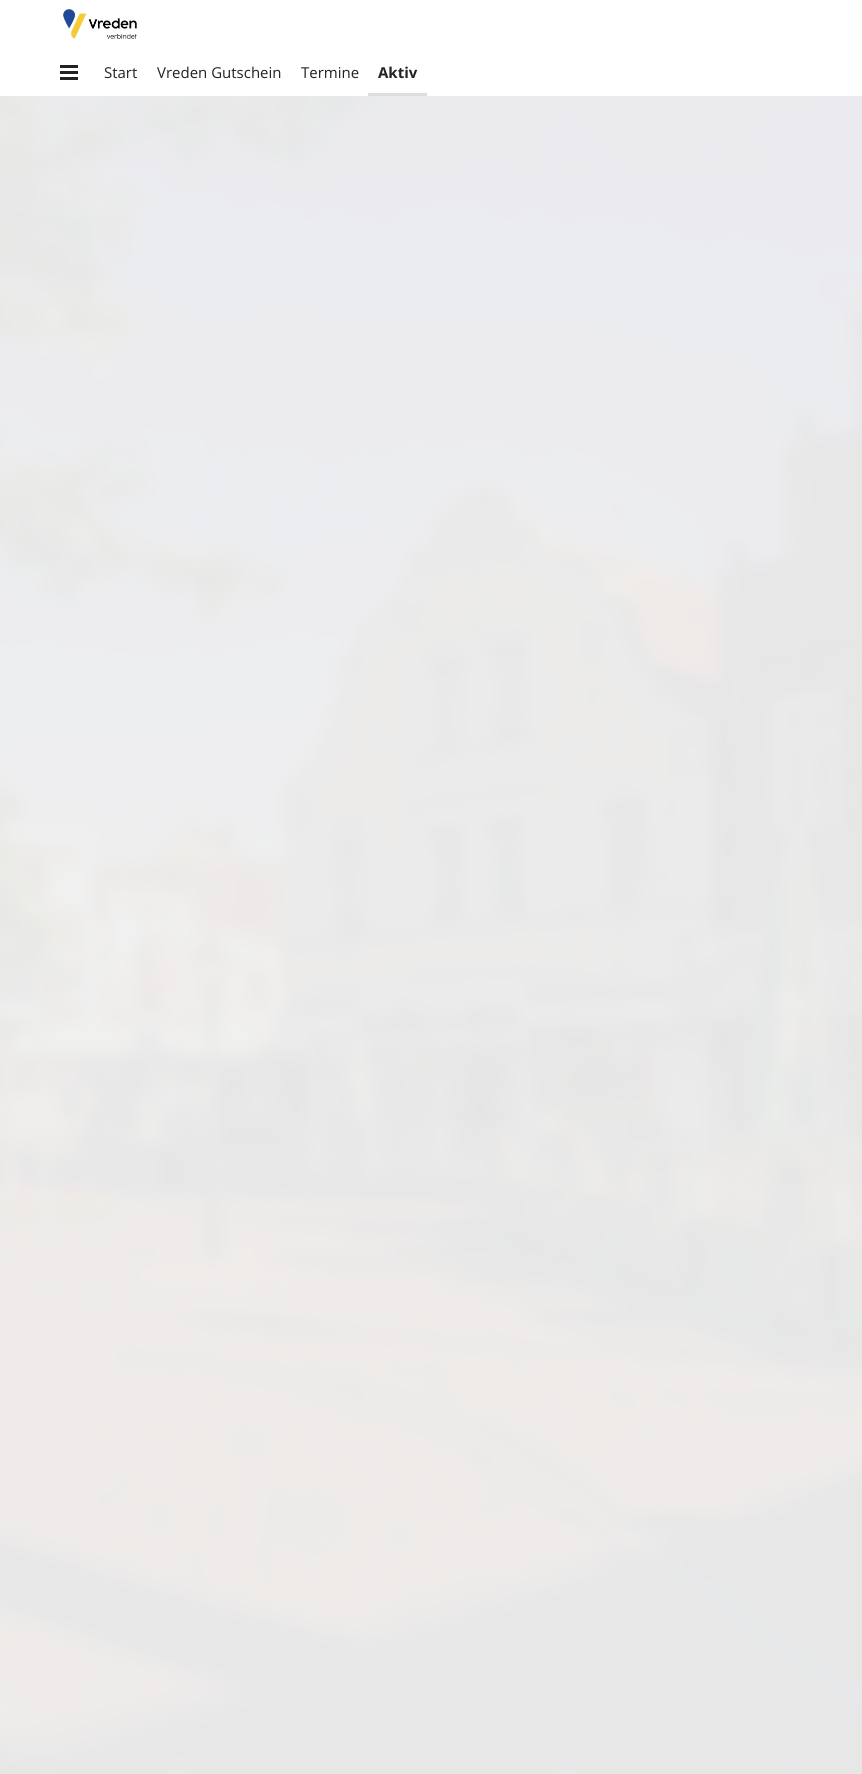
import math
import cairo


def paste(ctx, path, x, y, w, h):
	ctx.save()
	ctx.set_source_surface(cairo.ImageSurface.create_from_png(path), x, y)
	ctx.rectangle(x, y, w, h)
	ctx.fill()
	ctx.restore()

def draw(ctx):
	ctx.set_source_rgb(1, 1, 1)
	ctx.paint()
	paste(ctx, 'media/1.png', 63, 8, 74, 32)
	ctx.set_source_rgb(0.133, 0.133, 0.133)
	ctx.rectangle(60, 65, 18, 3)
	ctx.rectangle(60, 71, 18, 3)
	ctx.rectangle(60, 77, 18, 3)
	ctx.fill()
	ctx.select_font_face('Open Sans')
	ctx.set_font_size(15)
	for x, y, s in [
		(104, 78, 'Start'),
		(157, 78, 'Vreden Gutschein'),
		(301, 78, 'Termine'),
	]:
		ctx.move_to(x, y)
		ctx.show_text(s)
	ctx.select_font_face('Open Sans', cairo.FONT_SLANT_NORMAL, cairo.FONT_WEIGHT_BOLD)
	ctx.move_to(378, 78)
	ctx.show_text('Aktiv')
	ctx.set_source_rgb(0.867, 0.867, 0.867)
	ctx.rectangle(368, 93, 59, 3)
	ctx.fill()
	paste(ctx, 'media/2.png', 0, 96, 862, 1678)


surface = cairo.ImageSurface(cairo.FORMAT_RGB24, 862, 1774)
ctx = cairo.Context(surface)
options = cairo.FontOptions()
options.set_hint_metrics(cairo.HINT_METRICS_OFF)
options.set_hint_style(cairo.HINT_STYLE_NONE)
ctx.set_font_options(options)
ctx.set_miter_limit(4)
draw(ctx)
surface.write_to_png('image.png')
